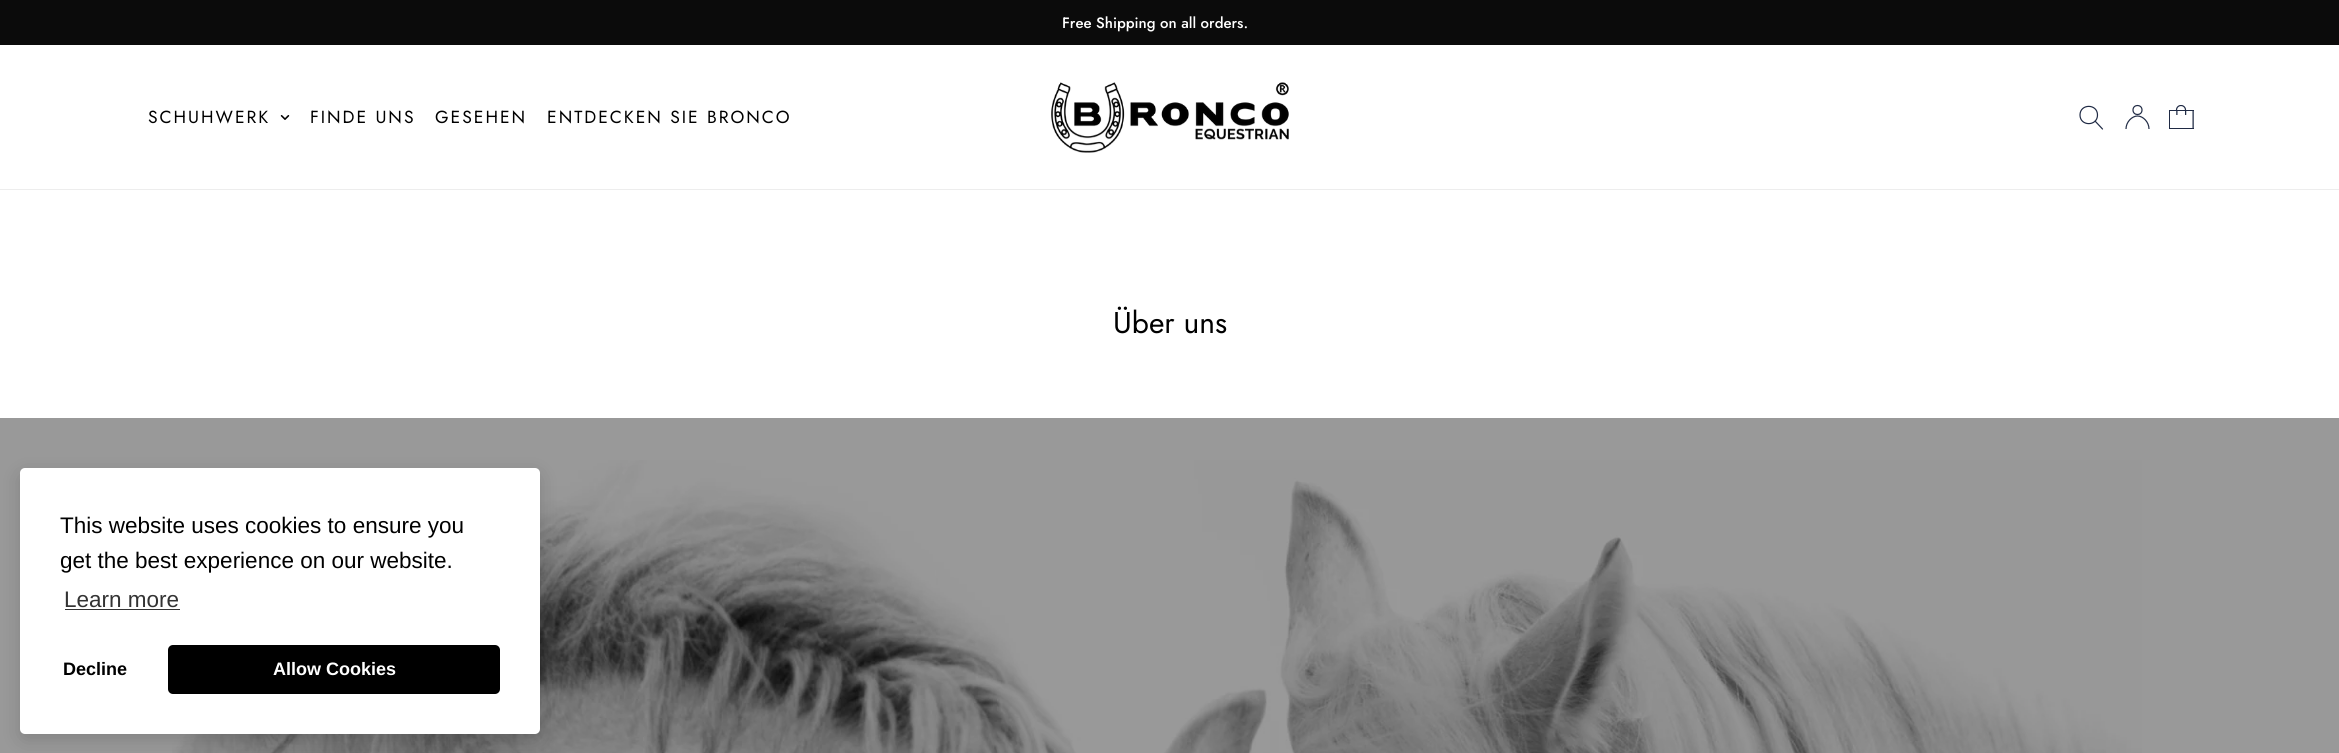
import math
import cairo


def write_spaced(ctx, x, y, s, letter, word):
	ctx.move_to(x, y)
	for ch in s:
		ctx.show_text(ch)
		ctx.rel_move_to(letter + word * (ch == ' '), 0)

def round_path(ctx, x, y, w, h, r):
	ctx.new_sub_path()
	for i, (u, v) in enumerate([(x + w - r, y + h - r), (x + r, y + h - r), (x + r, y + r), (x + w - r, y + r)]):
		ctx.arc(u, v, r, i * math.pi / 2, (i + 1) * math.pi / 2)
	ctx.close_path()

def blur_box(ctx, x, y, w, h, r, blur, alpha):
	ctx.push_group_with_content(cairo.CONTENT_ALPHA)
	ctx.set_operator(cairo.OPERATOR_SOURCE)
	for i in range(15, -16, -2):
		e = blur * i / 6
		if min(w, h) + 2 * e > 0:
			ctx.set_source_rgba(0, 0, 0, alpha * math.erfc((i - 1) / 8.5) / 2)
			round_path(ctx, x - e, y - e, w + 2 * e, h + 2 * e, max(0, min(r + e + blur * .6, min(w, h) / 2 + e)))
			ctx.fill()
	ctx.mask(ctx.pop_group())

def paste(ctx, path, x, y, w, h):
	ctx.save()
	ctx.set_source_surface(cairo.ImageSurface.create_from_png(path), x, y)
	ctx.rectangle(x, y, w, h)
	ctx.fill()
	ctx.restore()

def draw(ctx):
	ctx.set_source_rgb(1, 1, 1)
	ctx.paint()
	ctx.set_source_rgb(0.6, 0.6, 0.6)
	ctx.rectangle(0, 418, 2339, 335)
	ctx.fill()
	ctx.set_source_rgb(0.043, 0.043, 0.043)
	ctx.rectangle(0, 0, 2339, 45)
	ctx.fill()
	ctx.select_font_face('Jost Medium')
	ctx.set_font_size(15)
	ctx.set_source_rgb(1, 1, 1)
	ctx.move_to(1062, 28)
	ctx.show_text('Free Shipping on all orders.')
	ctx.set_source_rgb(0.929, 0.929, 0.929)
	ctx.rectangle(0, 189, 2339, 1)
	ctx.fill()
	ctx.select_font_face('Jost')
	ctx.set_font_size(17.5)
	ctx.set_source_rgb(0, 0, 0)
	write_spaced(ctx, 148, 123, 'SCHUHWERK', 2, 0)
	paste(ctx, 'media/1.png', 280, 115, 10, 5)
	for x, y, s in [
		(310, 123, 'FINDE UNS'),
		(435, 123, 'GESEHEN'),
		(547, 123, 'ENTDECKEN SIE BRONCO'),
	]:
		write_spaced(ctx, x, y, s, 2, 0)
	paste(ctx, 'media/2.png', 1051, 82, 238, 71)
	ctx.new_path()
	ctx.move_to(2102.5, 129)
	ctx.line_to(2095, 121)
	ctx.move_to(2097.5, 115)
	ctx.curve_to(2097.5, 126.5, 2080, 126.5, 2080, 115)
	ctx.curve_to(2080, 103.5, 2097.5, 103.5, 2097.5, 115)
	ctx.close_path()
	ctx.set_source_rgb(0.122, 0.165, 0.267)
	ctx.set_line_width(1.2)
	ctx.set_line_cap(cairo.LINE_CAP_ROUND)
	ctx.set_line_join(cairo.LINE_JOIN_ROUND)
	ctx.stroke()
	ctx.arc(2137.5, 110, 4.5, 0, 2 * math.pi)
	ctx.set_line_cap(cairo.LINE_CAP_BUTT)
	ctx.set_line_join(cairo.LINE_JOIN_MITER)
	ctx.stroke()
	ctx.new_path()
	ctx.move_to(2149, 129)
	ctx.curve_to(2149, 122, 2143, 116, 2137.5, 116)
	ctx.curve_to(2132, 116, 2126, 122, 2126, 129)
	ctx.stroke()
	paste(ctx, 'media/3.png', 2169, 105, 25, 24)
	ctx.set_font_size(30)
	ctx.set_source_rgb(0, 0, 0)
	ctx.move_to(1113, 333)
	ctx.show_text('Über uns')
	paste(ctx, 'media/4.png', 172, 460, 1970, 293)
	ctx.set_source_rgb(0, 0, 0)
	blur_box(ctx, 20, 474, 520, 266, 5, 9.5, 0.15)
	ctx.set_source_rgb(1, 1, 1)
	round_path(ctx, 20, 468, 520, 266, 5)
	ctx.fill()
	ctx.select_font_face('Liberation Sans')
	ctx.set_font_size(22.5)
	ctx.set_source_rgb(0, 0, 0)
	ctx.move_to(60, 533)
	ctx.show_text('This website uses cookies to ensure you')
	ctx.move_to(60, 568)
	ctx.show_text('get the best experience on our website.')
	ctx.set_source_rgb(0.2, 0.2, 0.2)
	ctx.move_to(64, 607)
	ctx.show_text('Learn more')
	ctx.rectangle(65, 609, 115, 1)
	ctx.fill()
	ctx.select_font_face('Liberation Sans', cairo.FONT_SLANT_NORMAL, cairo.FONT_WEIGHT_BOLD)
	ctx.set_font_size(18)
	ctx.set_source_rgb(0, 0, 0)
	ctx.move_to(63, 675)
	ctx.show_text('Decline')
	round_path(ctx, 168, 645, 332, 49, 5)
	ctx.fill()
	ctx.set_source_rgb(1, 1, 1)
	ctx.move_to(273, 675)
	ctx.show_text('Allow Cookies')


surface = cairo.ImageSurface(cairo.FORMAT_RGB24, 2339, 753)
ctx = cairo.Context(surface)
options = cairo.FontOptions()
options.set_hint_metrics(cairo.HINT_METRICS_OFF)
options.set_hint_style(cairo.HINT_STYLE_NONE)
ctx.set_font_options(options)
ctx.set_miter_limit(4)
draw(ctx)
surface.write_to_png('image.png')
